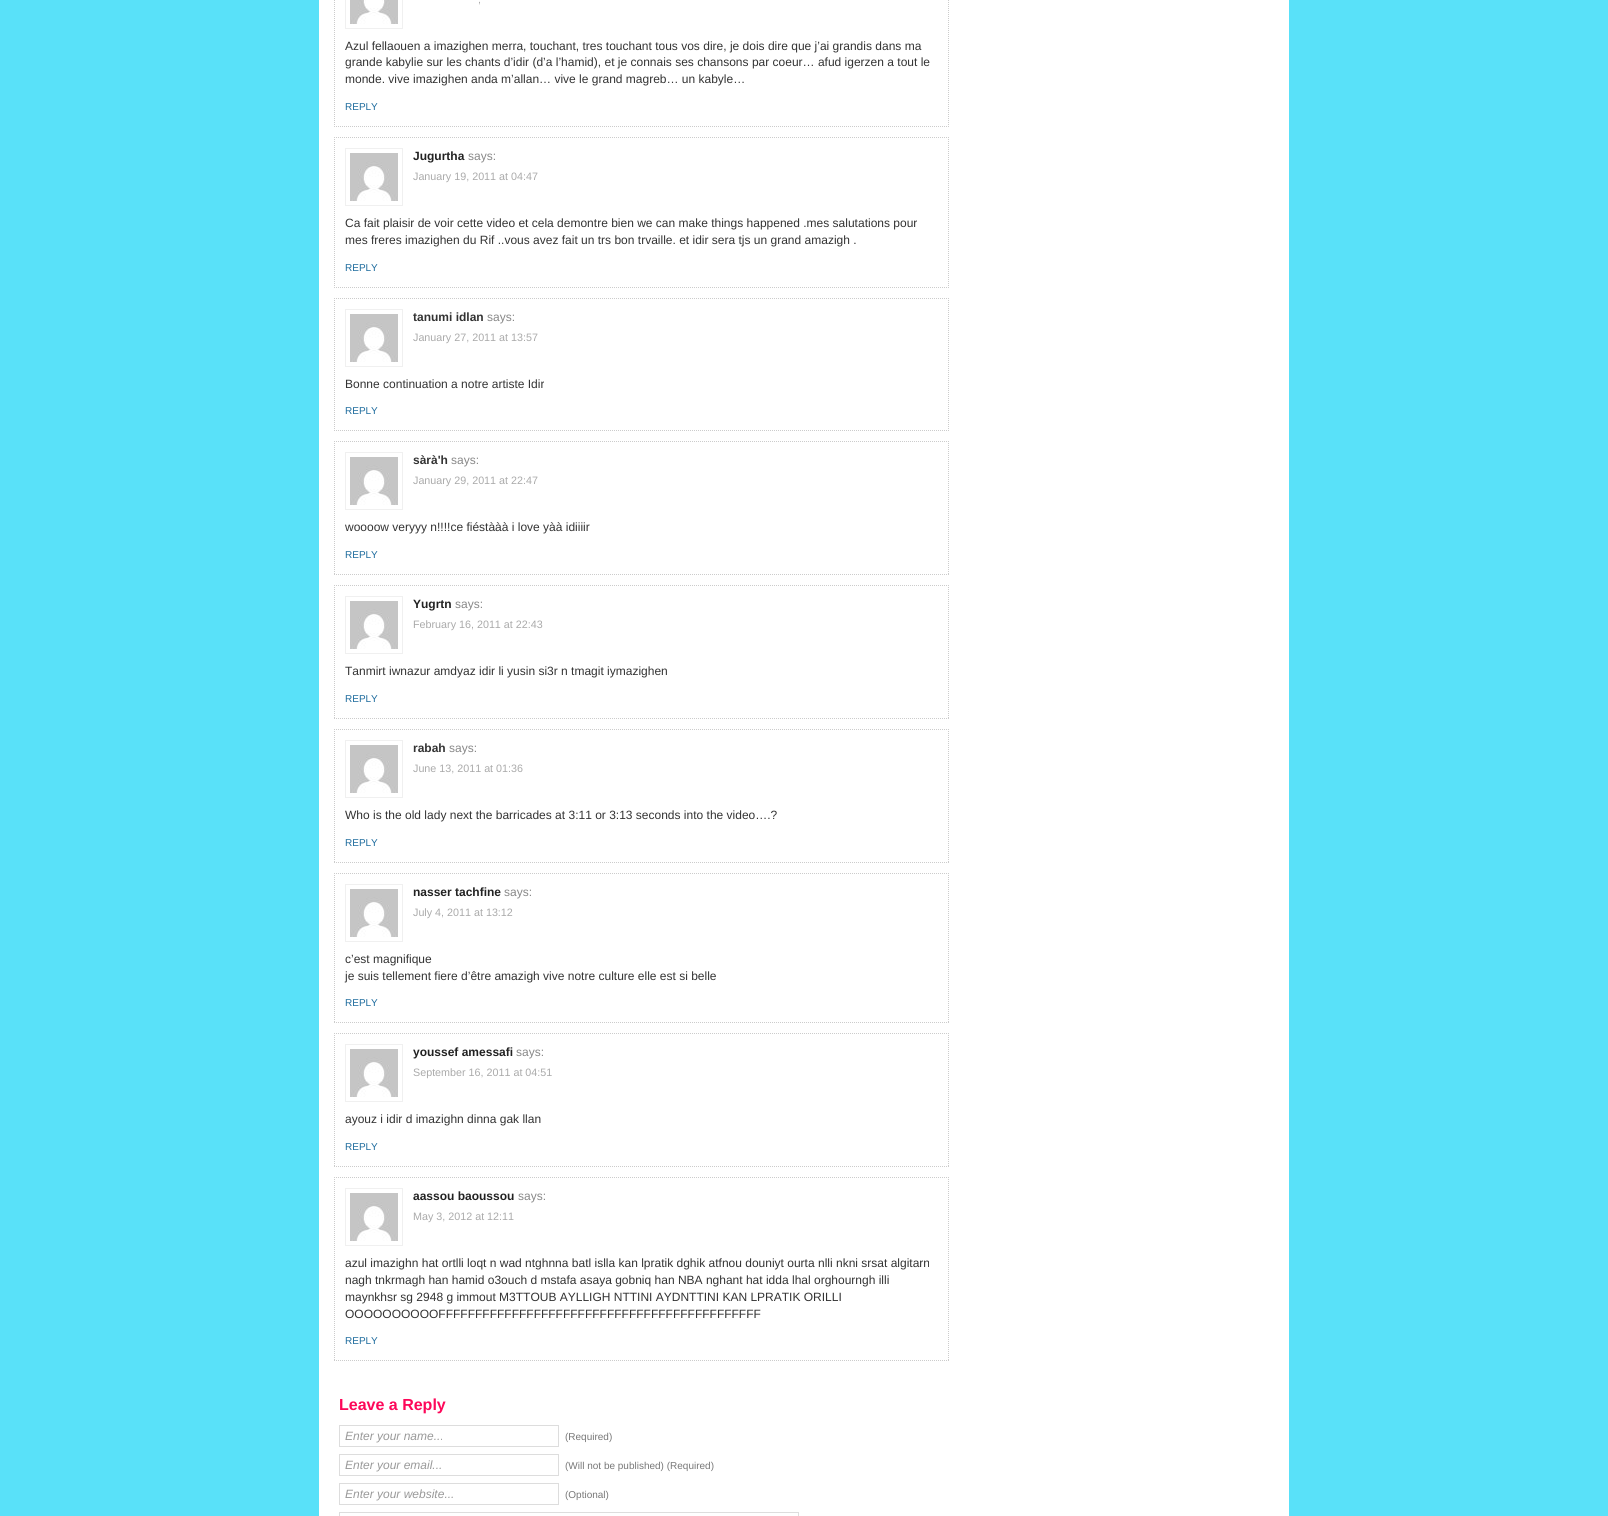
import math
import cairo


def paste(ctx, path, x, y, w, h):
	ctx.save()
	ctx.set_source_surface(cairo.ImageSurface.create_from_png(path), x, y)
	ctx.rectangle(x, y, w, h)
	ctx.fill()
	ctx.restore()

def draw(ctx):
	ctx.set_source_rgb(0.349, 0.882, 0.976)
	ctx.paint()
	ctx.set_source_rgb(1, 1, 1)
	ctx.rectangle(319, 0, 970, 1516)
	ctx.fill()
	ctx.new_path()
	ctx.move_to(948.5, -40)
	ctx.line_to(948.5, 127)
	ctx.set_source_rgb(0.8, 0.8, 0.8)
	ctx.set_line_width(1)
	ctx.set_dash([1, 1])
	ctx.stroke()
	ctx.new_path()
	ctx.move_to(334, 126.5)
	ctx.line_to(949, 126.5)
	ctx.stroke()
	ctx.new_path()
	ctx.move_to(334.5, -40)
	ctx.line_to(334.5, 127)
	ctx.stroke()
	ctx.rectangle(345.5, -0.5, 57, 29)
	ctx.set_source_rgb(0.941, 0.941, 0.941)
	ctx.set_dash([])
	ctx.stroke()
	paste(ctx, 'media/1.png', 350, 0, 48, 24)
	ctx.select_font_face('Liberation Sans')
	ctx.set_font_size(10.75)
	ctx.set_source_rgb(0.667, 0.667, 0.667)
	ctx.move_to(478, 3)
	ctx.show_text(',')
	ctx.set_font_size(12)
	ctx.set_source_rgb(0.2, 0.2, 0.2)
	for x, y, s in [
		(345, 50, 'Azul fellaouen a imazighen merra, touchant, tres touchant tous vos dire, je dois dire que j’ai grandis dans ma'),
		(345, 66, 'grande kabylie sur les chants d’idir (d’a l’hamid), et je connais ses chansons par coeur… afud igerzen a tout le'),
		(345, 83, 'monde. vive imazighen anda m’allan… vive le grand magreb… un kabyle…'),
	]:
		ctx.move_to(x, y)
		ctx.show_text(s)
	ctx.set_font_size(10)
	ctx.set_source_rgb(0.114, 0.42, 0.616)
	ctx.move_to(345, 110)
	ctx.show_text('REPLY')
	ctx.new_path()
	ctx.move_to(334, 137.5)
	ctx.line_to(949, 137.5)
	ctx.set_source_rgb(0.8, 0.8, 0.8)
	ctx.set_dash([1, 1])
	ctx.stroke()
	ctx.new_path()
	ctx.move_to(948.5, 137)
	ctx.line_to(948.5, 288)
	ctx.stroke()
	ctx.new_path()
	ctx.move_to(334, 287.5)
	ctx.line_to(949, 287.5)
	ctx.stroke()
	ctx.new_path()
	ctx.move_to(334.5, 137)
	ctx.line_to(334.5, 288)
	ctx.stroke()
	ctx.rectangle(345.5, 148.5, 57, 57)
	ctx.set_source_rgb(0.941, 0.941, 0.941)
	ctx.set_dash([])
	ctx.stroke()
	paste(ctx, 'media/2.png', 350, 153, 48, 48)
	ctx.select_font_face('Liberation Sans', cairo.FONT_SLANT_NORMAL, cairo.FONT_WEIGHT_BOLD)
	ctx.set_font_size(12)
	ctx.set_source_rgb(0.133, 0.133, 0.133)
	ctx.move_to(413, 160)
	ctx.show_text('Jugurtha')
	ctx.select_font_face('Liberation Sans')
	ctx.set_source_rgb(0.533, 0.533, 0.533)
	ctx.move_to(468, 160)
	ctx.show_text('says:')
	ctx.set_font_size(10.75)
	ctx.set_source_rgb(0.667, 0.667, 0.667)
	ctx.move_to(413, 180)
	ctx.show_text('January 19, 2011 at 04:47')
	ctx.set_font_size(12)
	ctx.set_source_rgb(0.2, 0.2, 0.2)
	ctx.move_to(345, 227)
	ctx.show_text('Ca fait plaisir de voir cette video et cela demontre bien we can make things happened .mes salutations pour')
	ctx.move_to(345, 244)
	ctx.show_text('mes freres imazighen du Rif ..vous avez fait un trs bon trvaille. et idir sera tjs un grand amazigh .')
	ctx.set_font_size(10)
	ctx.set_source_rgb(0.114, 0.42, 0.616)
	ctx.move_to(345, 271)
	ctx.show_text('REPLY')
	ctx.new_path()
	ctx.move_to(334, 298.5)
	ctx.line_to(949, 298.5)
	ctx.set_source_rgb(0.8, 0.8, 0.8)
	ctx.set_dash([1, 1])
	ctx.stroke()
	ctx.new_path()
	ctx.move_to(948.5, 298)
	ctx.line_to(948.5, 431)
	ctx.stroke()
	ctx.new_path()
	ctx.move_to(334, 430.5)
	ctx.line_to(949, 430.5)
	ctx.stroke()
	ctx.new_path()
	ctx.move_to(334.5, 298)
	ctx.line_to(334.5, 431)
	ctx.stroke()
	ctx.rectangle(345.5, 309.5, 57, 57)
	ctx.set_source_rgb(0.941, 0.941, 0.941)
	ctx.set_dash([])
	ctx.stroke()
	paste(ctx, 'media/2.png', 350, 314, 48, 48)
	ctx.select_font_face('Liberation Sans', cairo.FONT_SLANT_NORMAL, cairo.FONT_WEIGHT_BOLD)
	ctx.set_font_size(12)
	ctx.set_source_rgb(0.2, 0.2, 0.2)
	ctx.move_to(413, 321)
	ctx.show_text('tanumi idlan')
	ctx.select_font_face('Liberation Sans')
	ctx.set_source_rgb(0.533, 0.533, 0.533)
	ctx.move_to(487, 321)
	ctx.show_text('says:')
	ctx.set_font_size(10.75)
	ctx.set_source_rgb(0.667, 0.667, 0.667)
	ctx.move_to(413, 341)
	ctx.show_text('January 27, 2011 at 13:57')
	ctx.set_font_size(12)
	ctx.set_source_rgb(0.2, 0.2, 0.2)
	ctx.move_to(345, 388)
	ctx.show_text('Bonne continuation a notre artiste Idir')
	ctx.set_font_size(10)
	ctx.set_source_rgb(0.114, 0.42, 0.616)
	ctx.move_to(345, 414)
	ctx.show_text('REPLY')
	ctx.new_path()
	ctx.move_to(334, 441.5)
	ctx.line_to(949, 441.5)
	ctx.set_source_rgb(0.8, 0.8, 0.8)
	ctx.set_dash([1, 1])
	ctx.stroke()
	ctx.new_path()
	ctx.move_to(948.5, 441)
	ctx.line_to(948.5, 575)
	ctx.stroke()
	ctx.new_path()
	ctx.move_to(334, 574.5)
	ctx.line_to(949, 574.5)
	ctx.stroke()
	ctx.new_path()
	ctx.move_to(334.5, 441)
	ctx.line_to(334.5, 575)
	ctx.stroke()
	ctx.rectangle(345.5, 452.5, 57, 57)
	ctx.set_source_rgb(0.941, 0.941, 0.941)
	ctx.set_dash([])
	ctx.stroke()
	paste(ctx, 'media/2.png', 350, 457, 48, 48)
	ctx.select_font_face('Liberation Sans', cairo.FONT_SLANT_NORMAL, cairo.FONT_WEIGHT_BOLD)
	ctx.set_font_size(12)
	ctx.set_source_rgb(0.2, 0.2, 0.2)
	ctx.move_to(413, 464)
	ctx.show_text('sàrà\'h')
	ctx.select_font_face('Liberation Sans')
	ctx.set_source_rgb(0.533, 0.533, 0.533)
	ctx.move_to(451, 464)
	ctx.show_text('says:')
	ctx.set_font_size(10.75)
	ctx.set_source_rgb(0.667, 0.667, 0.667)
	ctx.move_to(413, 484)
	ctx.show_text('January 29, 2011 at 22:47')
	ctx.set_font_size(12)
	ctx.set_source_rgb(0.2, 0.2, 0.2)
	ctx.move_to(345, 531)
	ctx.show_text('woooow veryyy n!!!!ce fiéstààà i love yàà idiiiir')
	ctx.set_font_size(10)
	ctx.set_source_rgb(0.114, 0.42, 0.616)
	ctx.move_to(345, 558)
	ctx.show_text('REPLY')
	ctx.new_path()
	ctx.move_to(334, 585.5)
	ctx.line_to(949, 585.5)
	ctx.set_source_rgb(0.8, 0.8, 0.8)
	ctx.set_dash([1, 1])
	ctx.stroke()
	ctx.new_path()
	ctx.move_to(948.5, 585)
	ctx.line_to(948.5, 719)
	ctx.stroke()
	ctx.new_path()
	ctx.move_to(334, 718.5)
	ctx.line_to(949, 718.5)
	ctx.stroke()
	ctx.new_path()
	ctx.move_to(334.5, 585)
	ctx.line_to(334.5, 719)
	ctx.stroke()
	ctx.rectangle(345.5, 596.5, 57, 57)
	ctx.set_source_rgb(0.941, 0.941, 0.941)
	ctx.set_dash([])
	ctx.stroke()
	paste(ctx, 'media/2.png', 350, 601, 48, 48)
	ctx.select_font_face('Liberation Sans', cairo.FONT_SLANT_NORMAL, cairo.FONT_WEIGHT_BOLD)
	ctx.set_font_size(12)
	ctx.set_source_rgb(0.133, 0.133, 0.133)
	ctx.move_to(413, 608)
	ctx.show_text('Yugrtn')
	ctx.select_font_face('Liberation Sans')
	ctx.set_source_rgb(0.533, 0.533, 0.533)
	ctx.move_to(455, 608)
	ctx.show_text('says:')
	ctx.set_font_size(10.75)
	ctx.set_source_rgb(0.667, 0.667, 0.667)
	ctx.move_to(413, 628)
	ctx.show_text('February 16, 2011 at 22:43')
	ctx.set_font_size(12)
	ctx.set_source_rgb(0.2, 0.2, 0.2)
	ctx.move_to(345, 675)
	ctx.show_text('Tanmirt iwnazur amdyaz idir li yusin si3r n tmagit iymazighen')
	ctx.set_font_size(10)
	ctx.set_source_rgb(0.114, 0.42, 0.616)
	ctx.move_to(345, 702)
	ctx.show_text('REPLY')
	ctx.new_path()
	ctx.move_to(334, 729.5)
	ctx.line_to(949, 729.5)
	ctx.set_source_rgb(0.8, 0.8, 0.8)
	ctx.set_dash([1, 1])
	ctx.stroke()
	ctx.new_path()
	ctx.move_to(948.5, 729)
	ctx.line_to(948.5, 863)
	ctx.stroke()
	ctx.new_path()
	ctx.move_to(334, 862.5)
	ctx.line_to(949, 862.5)
	ctx.stroke()
	ctx.new_path()
	ctx.move_to(334.5, 729)
	ctx.line_to(334.5, 863)
	ctx.stroke()
	ctx.rectangle(345.5, 740.5, 57, 57)
	ctx.set_source_rgb(0.941, 0.941, 0.941)
	ctx.set_dash([])
	ctx.stroke()
	paste(ctx, 'media/2.png', 350, 745, 48, 48)
	ctx.select_font_face('Liberation Sans', cairo.FONT_SLANT_NORMAL, cairo.FONT_WEIGHT_BOLD)
	ctx.set_font_size(12)
	ctx.set_source_rgb(0.2, 0.2, 0.2)
	ctx.move_to(413, 752)
	ctx.show_text('rabah')
	ctx.select_font_face('Liberation Sans')
	ctx.set_source_rgb(0.533, 0.533, 0.533)
	ctx.move_to(449, 752)
	ctx.show_text('says:')
	ctx.set_font_size(10.75)
	ctx.set_source_rgb(0.667, 0.667, 0.667)
	ctx.move_to(413, 772)
	ctx.show_text('June 13, 2011 at 01:36')
	ctx.set_font_size(12)
	ctx.set_source_rgb(0.2, 0.2, 0.2)
	ctx.move_to(345, 819)
	ctx.show_text('Who is the old lady next the barricades at 3:11 or 3:13 seconds into the video….?')
	ctx.set_font_size(10)
	ctx.set_source_rgb(0.114, 0.42, 0.616)
	ctx.move_to(345, 846)
	ctx.show_text('REPLY')
	ctx.new_path()
	ctx.move_to(334, 873.5)
	ctx.line_to(949, 873.5)
	ctx.set_source_rgb(0.8, 0.8, 0.8)
	ctx.set_dash([1, 1])
	ctx.stroke()
	ctx.new_path()
	ctx.move_to(948.5, 873)
	ctx.line_to(948.5, 1023)
	ctx.stroke()
	ctx.new_path()
	ctx.move_to(334, 1022.5)
	ctx.line_to(949, 1022.5)
	ctx.stroke()
	ctx.new_path()
	ctx.move_to(334.5, 873)
	ctx.line_to(334.5, 1023)
	ctx.stroke()
	ctx.rectangle(345.5, 884.5, 57, 57)
	ctx.set_source_rgb(0.941, 0.941, 0.941)
	ctx.set_dash([])
	ctx.stroke()
	paste(ctx, 'media/2.png', 350, 889, 48, 48)
	ctx.select_font_face('Liberation Sans', cairo.FONT_SLANT_NORMAL, cairo.FONT_WEIGHT_BOLD)
	ctx.set_font_size(12)
	ctx.set_source_rgb(0.133, 0.133, 0.133)
	ctx.move_to(413, 896)
	ctx.show_text('nasser tachfine')
	ctx.select_font_face('Liberation Sans')
	ctx.set_source_rgb(0.533, 0.533, 0.533)
	ctx.move_to(504, 896)
	ctx.show_text('says:')
	ctx.set_font_size(10.75)
	ctx.set_source_rgb(0.667, 0.667, 0.667)
	ctx.move_to(413, 916)
	ctx.show_text('July 4, 2011 at 13:12')
	ctx.set_font_size(12)
	ctx.set_source_rgb(0.2, 0.2, 0.2)
	ctx.move_to(345, 963)
	ctx.show_text('c’est magnifique')
	ctx.move_to(345, 980)
	ctx.show_text('je suis tellement fiere d’être amazigh vive notre culture elle est si belle')
	ctx.set_font_size(10)
	ctx.set_source_rgb(0.114, 0.42, 0.616)
	ctx.move_to(345, 1006)
	ctx.show_text('REPLY')
	ctx.new_path()
	ctx.move_to(334, 1033.5)
	ctx.line_to(949, 1033.5)
	ctx.set_source_rgb(0.8, 0.8, 0.8)
	ctx.set_dash([1, 1])
	ctx.stroke()
	ctx.new_path()
	ctx.move_to(948.5, 1033)
	ctx.line_to(948.5, 1167)
	ctx.stroke()
	ctx.new_path()
	ctx.move_to(334, 1166.5)
	ctx.line_to(949, 1166.5)
	ctx.stroke()
	ctx.new_path()
	ctx.move_to(334.5, 1033)
	ctx.line_to(334.5, 1167)
	ctx.stroke()
	ctx.rectangle(345.5, 1044.5, 57, 57)
	ctx.set_source_rgb(0.941, 0.941, 0.941)
	ctx.set_dash([])
	ctx.stroke()
	paste(ctx, 'media/2.png', 350, 1049, 48, 48)
	ctx.select_font_face('Liberation Sans', cairo.FONT_SLANT_NORMAL, cairo.FONT_WEIGHT_BOLD)
	ctx.set_font_size(12)
	ctx.set_source_rgb(0.133, 0.133, 0.133)
	ctx.move_to(413, 1056)
	ctx.show_text('youssef amessafi')
	ctx.select_font_face('Liberation Sans')
	ctx.set_source_rgb(0.533, 0.533, 0.533)
	ctx.move_to(516, 1056)
	ctx.show_text('says:')
	ctx.set_font_size(10.75)
	ctx.set_source_rgb(0.667, 0.667, 0.667)
	ctx.move_to(413, 1076)
	ctx.show_text('September 16, 2011 at 04:51')
	ctx.set_font_size(12)
	ctx.set_source_rgb(0.2, 0.2, 0.2)
	ctx.move_to(345, 1123)
	ctx.show_text('ayouz i idir d imazighn dinna gak llan')
	ctx.set_font_size(10)
	ctx.set_source_rgb(0.114, 0.42, 0.616)
	ctx.move_to(345, 1150)
	ctx.show_text('REPLY')
	ctx.new_path()
	ctx.move_to(334, 1177.5)
	ctx.line_to(949, 1177.5)
	ctx.set_source_rgb(0.8, 0.8, 0.8)
	ctx.set_dash([1, 1])
	ctx.stroke()
	ctx.new_path()
	ctx.move_to(948.5, 1177)
	ctx.line_to(948.5, 1361)
	ctx.stroke()
	ctx.new_path()
	ctx.move_to(334, 1360.5)
	ctx.line_to(949, 1360.5)
	ctx.stroke()
	ctx.new_path()
	ctx.move_to(334.5, 1177)
	ctx.line_to(334.5, 1361)
	ctx.stroke()
	ctx.rectangle(345.5, 1188.5, 57, 57)
	ctx.set_source_rgb(0.941, 0.941, 0.941)
	ctx.set_dash([])
	ctx.stroke()
	paste(ctx, 'media/2.png', 350, 1193, 48, 48)
	ctx.select_font_face('Liberation Sans', cairo.FONT_SLANT_NORMAL, cairo.FONT_WEIGHT_BOLD)
	ctx.set_font_size(12)
	ctx.set_source_rgb(0.133, 0.133, 0.133)
	ctx.move_to(413, 1200)
	ctx.show_text('aassou baoussou')
	ctx.select_font_face('Liberation Sans')
	ctx.set_source_rgb(0.533, 0.533, 0.533)
	ctx.move_to(518, 1200)
	ctx.show_text('says:')
	ctx.set_font_size(10.75)
	ctx.set_source_rgb(0.667, 0.667, 0.667)
	ctx.move_to(413, 1220)
	ctx.show_text('May 3, 2012 at 12:11')
	ctx.set_font_size(12)
	ctx.set_source_rgb(0.2, 0.2, 0.2)
	for x, y, s in [
		(345, 1267, 'azul imazighn hat ortlli loqt n wad ntghnna batl islla kan lpratik dghik atfnou douniyt ourta nlli nkni srsat algitarn'),
		(345, 1284, 'nagh tnkrmagh han hamid o3ouch d mstafa asaya gobniq han NBA nghant hat idda lhal orghourngh illi'),
		(345, 1301, 'maynkhsr sg 2948 g immout M3TTOUB AYLLIGH NTTINI AYDNTTINI KAN LPRATIK ORILLI'),
		(345, 1318, 'OOOOOOOOOOFFFFFFFFFFFFFFFFFFFFFFFFFFFFFFFFFFFFFFFFFFFF'),
	]:
		ctx.move_to(x, y)
		ctx.show_text(s)
	ctx.set_font_size(10)
	ctx.set_source_rgb(0.114, 0.42, 0.616)
	ctx.move_to(345, 1344)
	ctx.show_text('REPLY')
	ctx.select_font_face('Liberation Sans', cairo.FONT_SLANT_NORMAL, cairo.FONT_WEIGHT_BOLD)
	ctx.set_font_size(16)
	ctx.set_source_rgb(0.992, 0.031, 0.349)
	ctx.move_to(339, 1410)
	ctx.show_text('Leave a Reply')
	ctx.rectangle(339.5, 1425.5, 219, 21)
	ctx.set_source_rgb(0.867, 0.867, 0.867)
	ctx.stroke()
	ctx.select_font_face('Liberation Sans', cairo.FONT_SLANT_ITALIC)
	ctx.set_font_size(12)
	ctx.set_source_rgb(0.6, 0.6, 0.6)
	ctx.move_to(345, 1440)
	ctx.show_text('Enter your name...')
	ctx.select_font_face('Liberation Sans')
	ctx.set_font_size(10)
	ctx.set_source_rgb(0.467, 0.467, 0.467)
	ctx.move_to(565, 1440)
	ctx.show_text('(Required)')
	ctx.rectangle(339.5, 1454.5, 219, 21)
	ctx.set_source_rgb(0.867, 0.867, 0.867)
	ctx.stroke()
	ctx.select_font_face('Liberation Sans', cairo.FONT_SLANT_ITALIC)
	ctx.set_font_size(12)
	ctx.set_source_rgb(0.6, 0.6, 0.6)
	ctx.move_to(345, 1469)
	ctx.show_text('Enter your email...')
	ctx.select_font_face('Liberation Sans')
	ctx.set_font_size(10)
	ctx.set_source_rgb(0.467, 0.467, 0.467)
	ctx.move_to(565, 1469)
	ctx.show_text('(Will not be published) (Required)')
	ctx.rectangle(339.5, 1483.5, 219, 21)
	ctx.set_source_rgb(0.867, 0.867, 0.867)
	ctx.stroke()
	ctx.select_font_face('Liberation Sans', cairo.FONT_SLANT_ITALIC)
	ctx.set_font_size(12)
	ctx.set_source_rgb(0.6, 0.6, 0.6)
	ctx.move_to(345, 1498)
	ctx.show_text('Enter your website...')
	ctx.select_font_face('Liberation Sans')
	ctx.set_font_size(10)
	ctx.set_source_rgb(0.467, 0.467, 0.467)
	ctx.move_to(565, 1498)
	ctx.show_text('(Optional)')
	ctx.rectangle(339.5, 1512.5, 459, 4)
	ctx.set_source_rgb(0.867, 0.867, 0.867)
	ctx.stroke()


surface = cairo.ImageSurface(cairo.FORMAT_RGB24, 1608, 1516)
ctx = cairo.Context(surface)
options = cairo.FontOptions()
options.set_hint_metrics(cairo.HINT_METRICS_OFF)
options.set_hint_style(cairo.HINT_STYLE_NONE)
ctx.set_font_options(options)
ctx.set_miter_limit(4)
draw(ctx)
surface.write_to_png('image.png')
